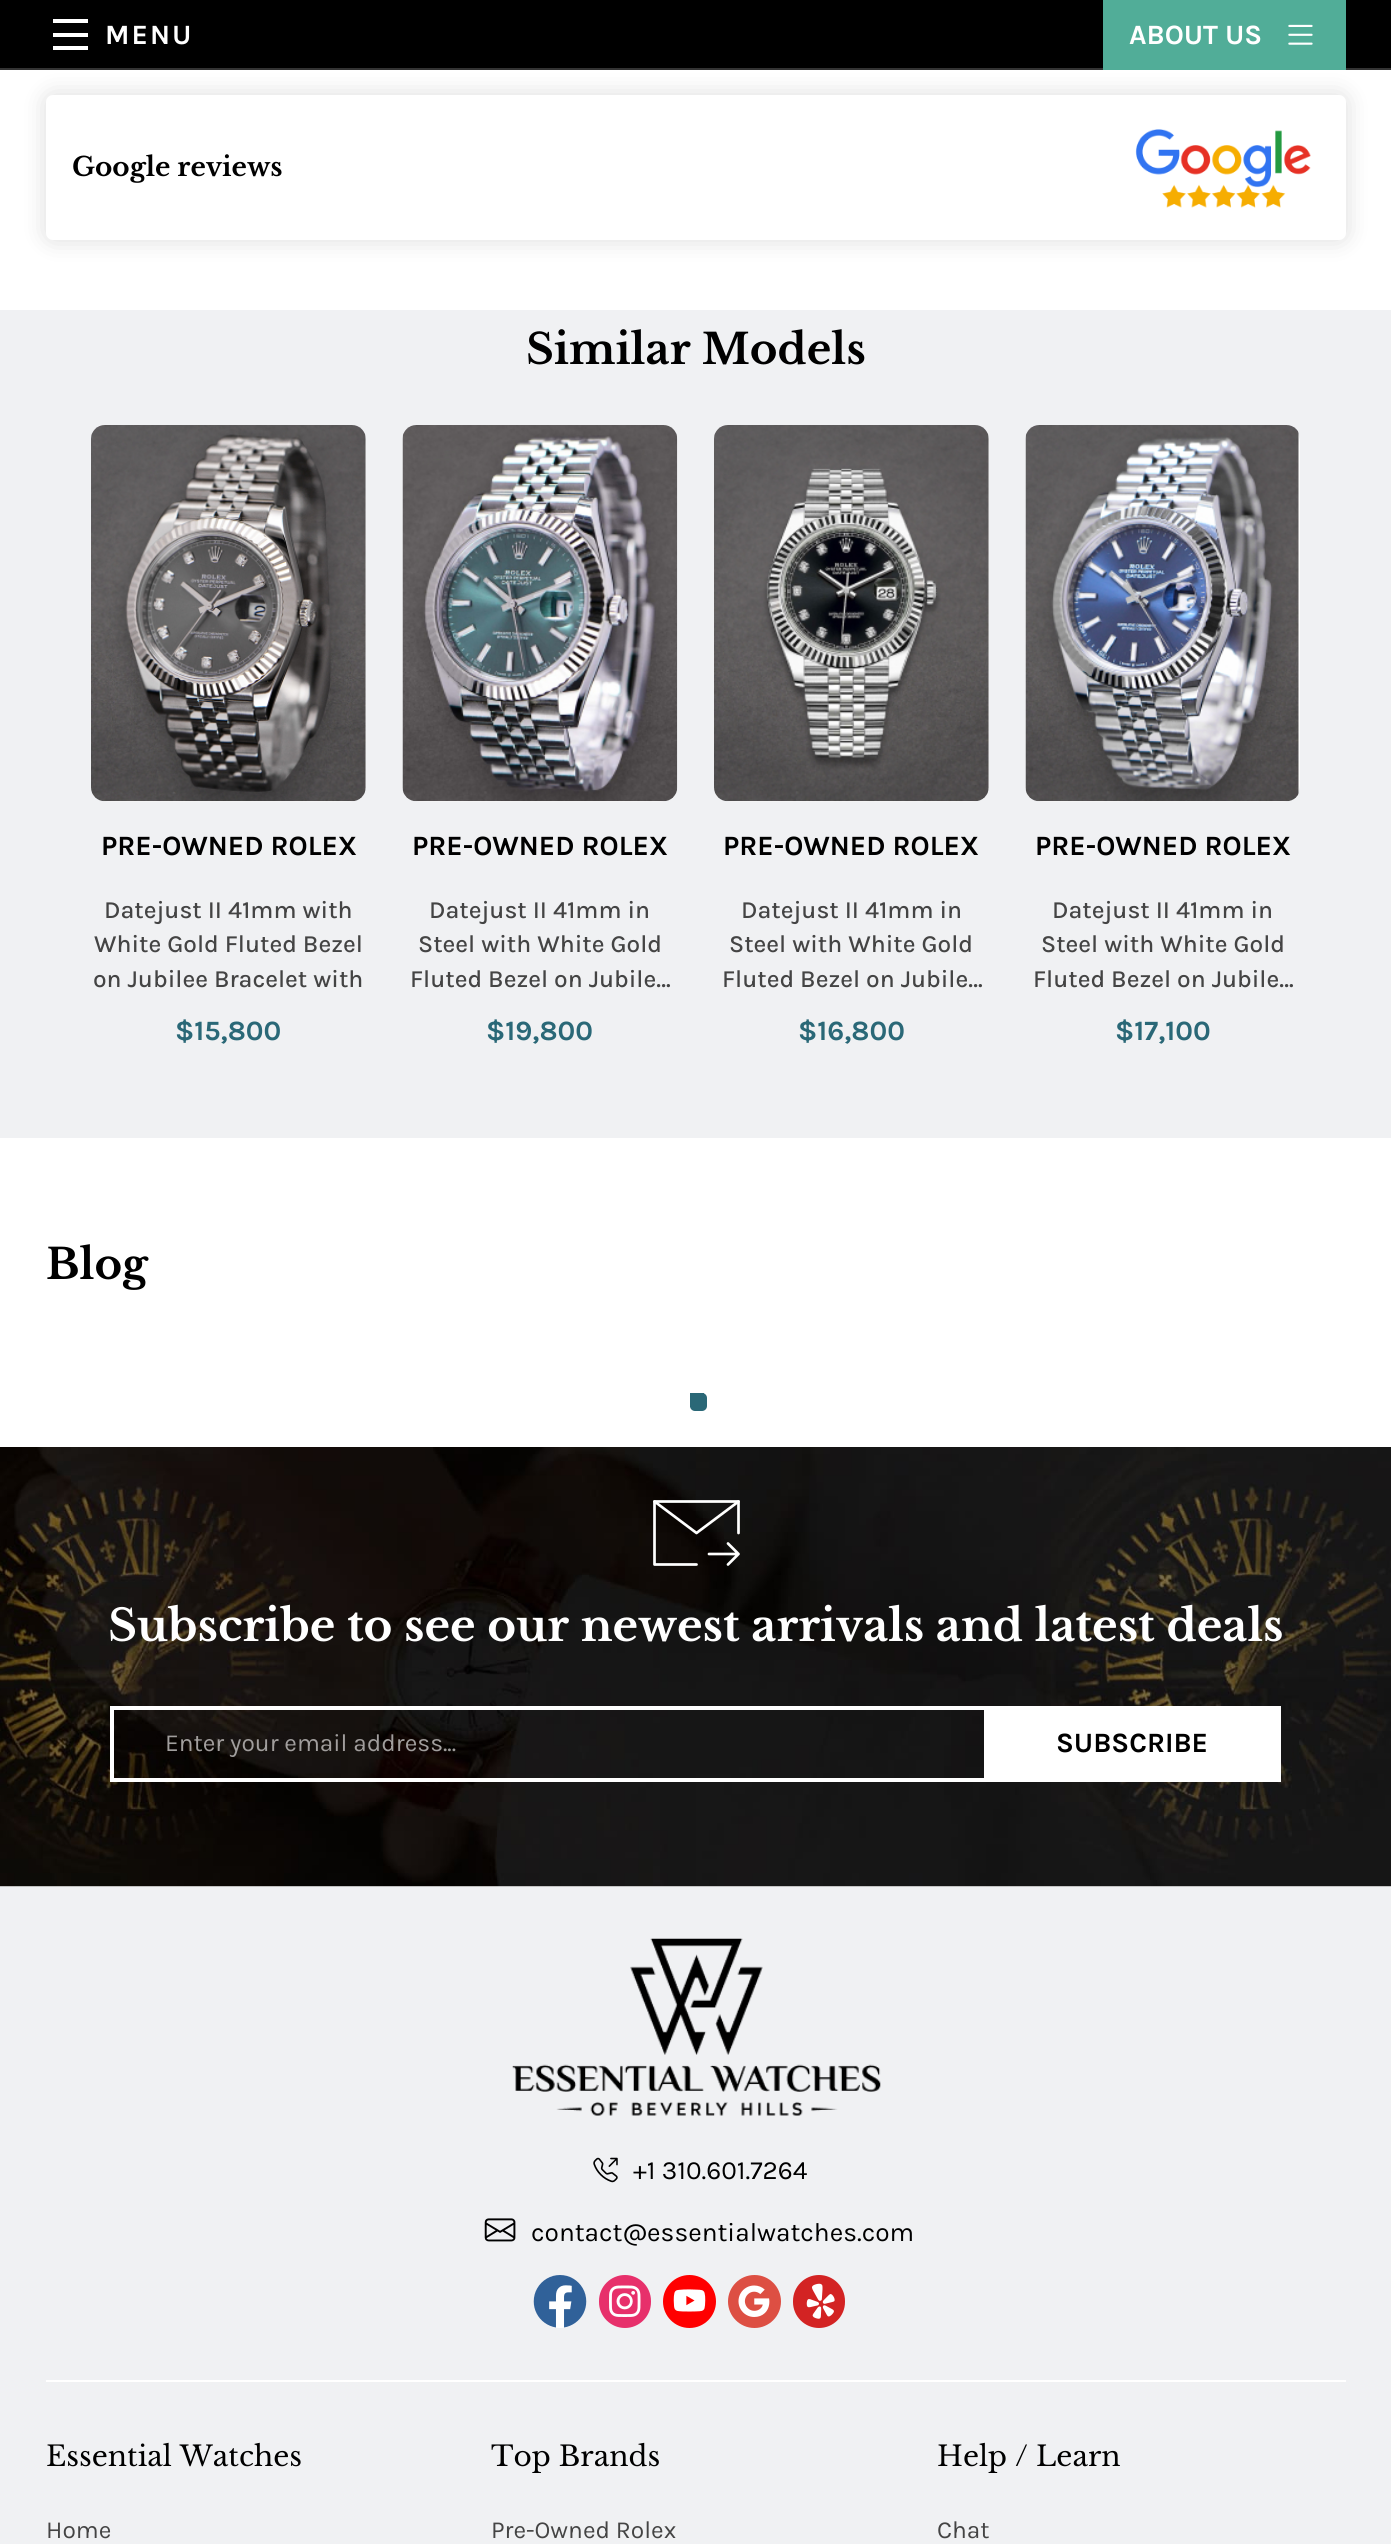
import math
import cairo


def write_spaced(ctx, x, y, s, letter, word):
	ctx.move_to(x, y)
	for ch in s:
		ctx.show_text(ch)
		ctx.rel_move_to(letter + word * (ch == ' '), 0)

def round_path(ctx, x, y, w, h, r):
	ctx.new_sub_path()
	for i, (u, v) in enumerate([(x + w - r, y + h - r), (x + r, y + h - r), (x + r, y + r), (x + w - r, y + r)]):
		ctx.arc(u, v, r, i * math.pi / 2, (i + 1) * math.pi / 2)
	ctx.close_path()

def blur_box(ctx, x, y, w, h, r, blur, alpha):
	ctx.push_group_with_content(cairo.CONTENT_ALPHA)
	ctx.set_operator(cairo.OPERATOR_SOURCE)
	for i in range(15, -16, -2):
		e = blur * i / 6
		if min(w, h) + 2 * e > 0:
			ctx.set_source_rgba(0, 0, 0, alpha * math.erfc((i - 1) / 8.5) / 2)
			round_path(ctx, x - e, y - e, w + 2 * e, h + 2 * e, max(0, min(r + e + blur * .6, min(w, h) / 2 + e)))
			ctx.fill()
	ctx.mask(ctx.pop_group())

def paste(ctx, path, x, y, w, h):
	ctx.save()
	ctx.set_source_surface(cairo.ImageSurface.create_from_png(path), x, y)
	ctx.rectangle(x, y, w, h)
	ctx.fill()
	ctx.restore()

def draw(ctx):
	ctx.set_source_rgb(1, 1, 1)
	ctx.paint()
	ctx.set_source_rgb(0, 0, 0)
	blur_box(ctx, 46, 95, 1300, 145, 7, 12, 0.14)
	ctx.set_source_rgb(0, 0, 0)
	ctx.rectangle(0, 0, 1391, 68)
	ctx.fill()
	ctx.set_source_rgb(0.2, 0.2, 0.2)
	ctx.rectangle(0, 68, 1391, 2)
	ctx.fill()
	ctx.set_source_rgb(1, 1, 1)
	ctx.rectangle(53, 19, 35, 4)
	ctx.rectangle(53, 33, 35, 4)
	ctx.rectangle(53, 46, 35, 4)
	ctx.fill()
	ctx.select_font_face('Karla', cairo.FONT_SLANT_NORMAL, cairo.FONT_WEIGHT_BOLD)
	ctx.set_font_size(28)
	write_spaced(ctx, 105, 44, 'MENU', 2, 0)
	ctx.set_source_rgb(0.318, 0.678, 0.596)
	ctx.rectangle(1103, 0, 243, 70)
	ctx.fill()
	ctx.set_source_rgb(1, 1, 1)
	ctx.move_to(1129, 44)
	ctx.show_text('ABOUT US')
	paste(ctx, 'media/1.png', 1288, 24, 25, 21)
	round_path(ctx, 46, 95, 1300, 145, 7)
	ctx.fill()
	ctx.select_font_face('Libre Baskerville', cairo.FONT_SLANT_NORMAL, cairo.FONT_WEIGHT_BOLD)
	ctx.set_font_size(26.25)
	ctx.set_source_rgb(0, 0, 0)
	ctx.move_to(72, 176)
	ctx.show_text('Google reviews')
	paste(ctx, 'media/2.png', 1135, 129, 176, 79)
	ctx.set_source_rgb(0.941, 0.945, 0.953)
	ctx.rectangle(0, 310, 1391, 828)
	ctx.fill()
	ctx.set_font_size(42)
	ctx.set_source_rgb(0, 0, 0)
	ctx.move_to(526, 364)
	ctx.show_text('Similar Models')
	ctx.set_source_rgb(1, 1, 1)
	round_path(ctx, 91, 425, 275, 377, 18)
	ctx.fill()
	paste(ctx, 'media/3.png', 91, 425, 275, 377)
	ctx.select_font_face('Karla', cairo.FONT_SLANT_NORMAL, cairo.FONT_WEIGHT_BOLD)
	ctx.set_font_size(28)
	ctx.set_source_rgb(0, 0, 0)
	ctx.move_to(101, 855)
	ctx.show_text('PRE-OWNED ROLEX')
	ctx.select_font_face('Karla Medium')
	ctx.set_font_size(24.5)
	ctx.set_source_rgb(0.267, 0.267, 0.267)
	for x, y, s in [
		(104, 918, 'Datejust II 41mm with'),
		(94, 952, 'White Gold Fluted Bezel'),
		(93, 987, 'on Jubilee Bracelet with'),
	]:
		ctx.move_to(x, y)
		ctx.show_text(s)
	ctx.select_font_face('Karla', cairo.FONT_SLANT_NORMAL, cairo.FONT_WEIGHT_BOLD)
	ctx.set_font_size(28)
	ctx.set_source_rgb(0.165, 0.408, 0.467)
	ctx.move_to(175, 1040)
	ctx.show_text('$15,800')
	ctx.set_source_rgb(1, 1, 1)
	round_path(ctx, 403, 425, 274, 377, 18)
	ctx.fill()
	paste(ctx, 'media/4.png', 402, 425, 276, 377)
	ctx.set_source_rgb(0, 0, 0)
	ctx.move_to(412, 855)
	ctx.show_text('PRE-OWNED ROLEX')
	ctx.select_font_face('Karla Medium')
	ctx.set_font_size(24.5)
	ctx.set_source_rgb(0.267, 0.267, 0.267)
	for x, y, s in [
		(429, 918, 'Datejust II 41mm in'),
		(418, 952, 'Steel with White Gold'),
		(410, 987, 'Fluted Bezel on Jubile…'),
	]:
		ctx.move_to(x, y)
		ctx.show_text(s)
	ctx.select_font_face('Karla', cairo.FONT_SLANT_NORMAL, cairo.FONT_WEIGHT_BOLD)
	ctx.set_font_size(28)
	ctx.set_source_rgb(0.165, 0.408, 0.467)
	ctx.move_to(486, 1040)
	ctx.show_text('$19,800')
	ctx.set_source_rgb(1, 1, 1)
	round_path(ctx, 714, 425, 275, 377, 18)
	ctx.fill()
	paste(ctx, 'media/5.png', 714, 425, 275, 377)
	ctx.set_source_rgb(0, 0, 0)
	ctx.move_to(723, 855)
	ctx.show_text('PRE-OWNED ROLEX')
	ctx.select_font_face('Karla Medium')
	ctx.set_font_size(24.5)
	ctx.set_source_rgb(0.267, 0.267, 0.267)
	for x, y, s in [
		(741, 918, 'Datejust II 41mm in'),
		(729, 952, 'Steel with White Gold'),
		(722, 987, 'Fluted Bezel on Jubile…'),
	]:
		ctx.move_to(x, y)
		ctx.show_text(s)
	ctx.select_font_face('Karla', cairo.FONT_SLANT_NORMAL, cairo.FONT_WEIGHT_BOLD)
	ctx.set_font_size(28)
	ctx.set_source_rgb(0.165, 0.408, 0.467)
	ctx.move_to(798, 1040)
	ctx.show_text('$16,800')
	ctx.set_source_rgb(1, 1, 1)
	round_path(ctx, 1026, 425, 274, 377, 18)
	ctx.fill()
	paste(ctx, 'media/6.png', 1025, 425, 274, 377)
	ctx.set_source_rgb(0, 0, 0)
	ctx.move_to(1035, 855)
	ctx.show_text('PRE-OWNED ROLEX')
	ctx.select_font_face('Karla Medium')
	ctx.set_font_size(24.5)
	ctx.set_source_rgb(0.267, 0.267, 0.267)
	for x, y, s in [
		(1052, 918, 'Datejust II 41mm in'),
		(1041, 952, 'Steel with White Gold'),
		(1033, 987, 'Fluted Bezel on Jubile…'),
	]:
		ctx.move_to(x, y)
		ctx.show_text(s)
	ctx.select_font_face('Karla', cairo.FONT_SLANT_NORMAL, cairo.FONT_WEIGHT_BOLD)
	ctx.set_font_size(28)
	ctx.set_source_rgb(0.165, 0.408, 0.467)
	ctx.move_to(1115, 1040)
	ctx.show_text('$17,100')
	ctx.select_font_face('Libre Baskerville', cairo.FONT_SLANT_NORMAL, cairo.FONT_WEIGHT_BOLD)
	ctx.set_font_size(42)
	ctx.set_source_rgb(0, 0, 0)
	ctx.move_to(46, 1279)
	ctx.show_text('Blog')
	ctx.set_source_rgb(0.165, 0.408, 0.467)
	ctx.rectangle(690, 1393, 14, 14)
	ctx.fill()
	round_path(ctx, 690, 1393, 17, 18, 5)
	ctx.fill()
	paste(ctx, 'media/7.png', 0, 1447, 1391, 440)
	ctx.new_path()
	ctx.move_to(738.5, 1533)
	ctx.line_to(738.5, 1501.5)
	ctx.line_to(654.5, 1501.5)
	ctx.line_to(654.5, 1564.5)
	ctx.line_to(696.5, 1564.5)
	ctx.move_to(738.5, 1554)
	ctx.line_to(709, 1554)
	ctx.move_to(728, 1543.5)
	ctx.line_to(738.5, 1554)
	ctx.line_to(728, 1564.5)
	ctx.set_source_rgb(1, 1, 1)
	ctx.set_line_width(2.7)
	ctx.set_line_cap(cairo.LINE_CAP_ROUND)
	ctx.set_line_join(cairo.LINE_JOIN_ROUND)
	ctx.stroke()
	ctx.new_path()
	ctx.move_to(654.5, 1501.5)
	ctx.line_to(696.5, 1533)
	ctx.line_to(738.5, 1501.5)
	ctx.stroke()
	ctx.set_font_size(43.75)
	ctx.move_to(108, 1641)
	ctx.show_text('Subscribe to see our newest arrivals and latest deals')
	ctx.rectangle(984, 1706, 297, 76)
	ctx.rectangle(110, 1706, 875, 4)
	ctx.rectangle(110, 1778, 875, 4)
	ctx.rectangle(110, 1706, 4, 76)
	ctx.fill()
	ctx.select_font_face('Karla')
	ctx.set_font_size(24.5)
	ctx.set_source_rgb(0.631, 0.62, 0.616)
	ctx.move_to(165, 1751)
	ctx.show_text('Enter your email address...')
	ctx.select_font_face('Karla', cairo.FONT_SLANT_NORMAL, cairo.FONT_WEIGHT_BOLD)
	ctx.set_font_size(28)
	ctx.set_source_rgb(0, 0, 0)
	ctx.move_to(1056, 1752)
	ctx.show_text('SUBSCRIBE')
	ctx.set_source_rgb(0.941, 0.945, 0.953)
	ctx.rectangle(0, 1887, 1391, 657)
	ctx.fill()
	ctx.set_source_rgb(1, 1, 1)
	ctx.rectangle(46, 2380, 1300, 2)
	ctx.fill()
	paste(ctx, 'media/8.png', 512, 1938, 369, 178)
	paste(ctx, 'media/9.png', 593, 2157, 25, 26)
	ctx.select_font_face('Karla')
	ctx.set_font_size(26.25)
	ctx.set_source_rgb(0, 0, 0)
	ctx.move_to(633, 2179)
	ctx.show_text('+1 310.601.7264')
	paste(ctx, 'media/10.png', 484, 2218, 32, 24)
	ctx.move_to(531, 2241)
	ctx.show_text('contact@essentialwatches.com')
	ctx.set_source_rgb(1, 1, 1)
	round_path(ctx, 534, 2275, 52, 53, 26)
	ctx.fill()
	paste(ctx, 'media/11.png', 533, 2275, 54, 53)
	ctx.set_source_rgb(0.906, 0.188, 0.42)
	round_path(ctx, 599, 2275, 52, 53, 26)
	ctx.fill()
	paste(ctx, 'media/12.png', 609, 2285, 32, 32)
	ctx.set_source_rgb(1, 0, 0)
	ctx.arc(689.5, 2301.5, 26.5, 0, 2 * math.pi)
	ctx.fill()
	paste(ctx, 'media/13.png', 673, 2289, 33, 23)
	ctx.set_source_rgb(0.867, 0.31, 0.263)
	ctx.arc(754.5, 2301.5, 26.5, 0, 2 * math.pi)
	ctx.fill()
	paste(ctx, 'media/14.png', 738, 2285, 32, 32)
	ctx.set_source_rgb(0.827, 0.137, 0.137)
	round_path(ctx, 793, 2275, 52, 53, 26)
	ctx.fill()
	paste(ctx, 'media/15.png', 806, 2283, 29, 36)
	ctx.select_font_face('Libre Baskerville')
	ctx.set_font_size(28)
	ctx.set_source_rgb(0, 0, 0)
	ctx.move_to(46, 2466)
	ctx.show_text('Essential Watches')
	ctx.select_font_face('Karla')
	ctx.set_font_size(24.5)
	ctx.set_source_rgb(0.267, 0.267, 0.267)
	ctx.move_to(46, 2538)
	ctx.show_text('Home')
	ctx.select_font_face('Libre Baskerville')
	ctx.set_font_size(28)
	ctx.set_source_rgb(0, 0, 0)
	ctx.move_to(491, 2466)
	ctx.show_text('Top Brands')
	ctx.select_font_face('Karla')
	ctx.set_font_size(24.5)
	ctx.set_source_rgb(0.267, 0.267, 0.267)
	ctx.move_to(491, 2538)
	ctx.show_text('Pre-Owned Rolex')
	ctx.select_font_face('Libre Baskerville')
	ctx.set_font_size(28)
	ctx.set_source_rgb(0, 0, 0)
	ctx.move_to(937, 2466)
	ctx.show_text('Help / Learn')
	ctx.select_font_face('Karla')
	ctx.set_font_size(24.5)
	ctx.set_source_rgb(0.267, 0.267, 0.267)
	ctx.move_to(937, 2538)
	ctx.show_text('Chat')


surface = cairo.ImageSurface(cairo.FORMAT_RGB24, 1391, 2544)
ctx = cairo.Context(surface)
options = cairo.FontOptions()
options.set_hint_metrics(cairo.HINT_METRICS_OFF)
options.set_hint_style(cairo.HINT_STYLE_NONE)
ctx.set_font_options(options)
ctx.set_miter_limit(4)
draw(ctx)
surface.write_to_png('image.png')
